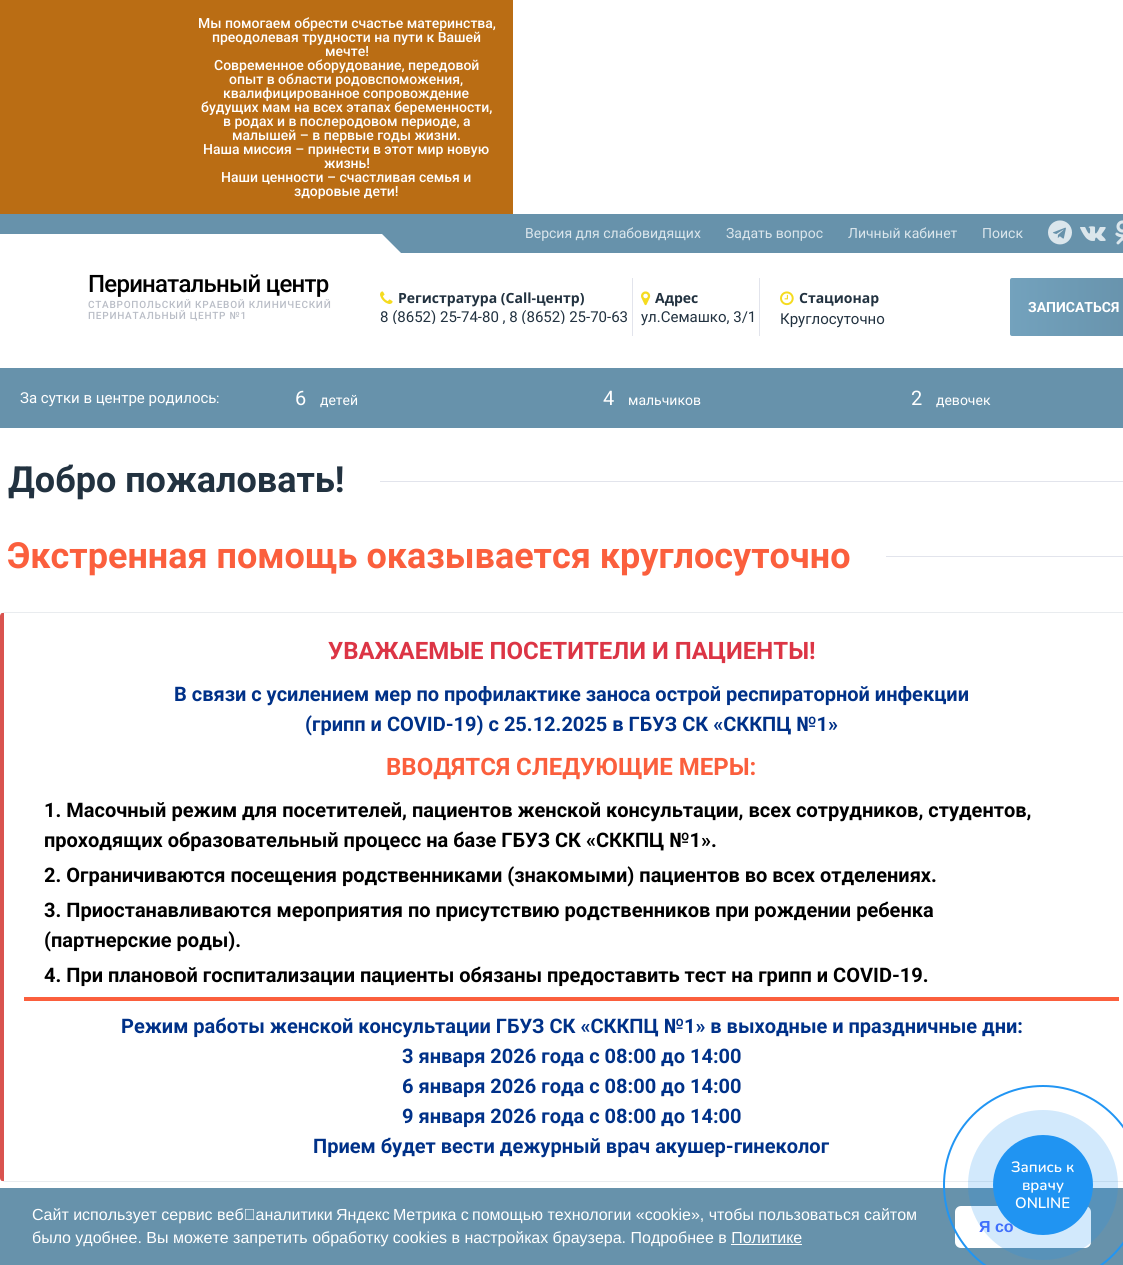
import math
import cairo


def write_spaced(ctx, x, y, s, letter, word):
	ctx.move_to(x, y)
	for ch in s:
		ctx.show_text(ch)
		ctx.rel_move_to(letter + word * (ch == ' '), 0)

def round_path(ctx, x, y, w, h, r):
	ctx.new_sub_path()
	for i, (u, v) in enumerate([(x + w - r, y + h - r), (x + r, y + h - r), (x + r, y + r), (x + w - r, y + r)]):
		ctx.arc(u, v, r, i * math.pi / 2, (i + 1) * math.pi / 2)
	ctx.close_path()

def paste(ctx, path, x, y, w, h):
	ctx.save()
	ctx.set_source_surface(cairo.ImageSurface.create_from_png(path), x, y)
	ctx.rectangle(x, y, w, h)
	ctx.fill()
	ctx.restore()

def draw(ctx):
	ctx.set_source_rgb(1, 1, 1)
	ctx.paint()
	ctx.set_source_rgb(0.729, 0.427, 0.082)
	ctx.rectangle(0, 0, 513, 214)
	ctx.fill()
	ctx.select_font_face('Roboto Medium')
	ctx.set_font_size(14)
	ctx.set_source_rgb(1, 1, 1)
	for x, y, s in [
		(198, 28, 'Мы помогаем обрести счастье материнства,'),
		(212, 42, 'преодолевая трудности на пути к Вашей'),
		(325, 56, 'мечте!'),
		(214, 70, 'Современное оборудование, передовой'),
		(229, 84, 'опыт в области родовспоможения,'),
		(223, 98, 'квалифицированное сопровождение'),
		(201, 112, 'будущих мам на всех этапах беременности,'),
		(223, 126, 'в родах и в послеродовом периоде, а'),
		(232, 140, 'малышей – в первые годы жизни.'),
		(203, 154, 'Наша миссия – принести в этот мир новую'),
		(324, 168, 'жизнь!'),
		(221, 182, 'Наши ценности – счастливая семья и'),
		(294, 196, 'здоровые дети!'),
	]:
		ctx.move_to(x, y)
		ctx.show_text(s)
	ctx.set_source_rgb(0.404, 0.573, 0.671)
	ctx.rectangle(0, 214, 1123, 39)
	ctx.fill()
	ctx.set_source_rgb(1, 1, 1)
	ctx.rectangle(0, 234, 382, 19)
	ctx.fill()
	ctx.new_path()
	ctx.move_to(382, 234)
	ctx.line_to(410, 262)
	ctx.line_to(410, 288)
	ctx.line_to(382, 260)
	ctx.close_path()
	ctx.fill()
	ctx.select_font_face('Roboto')
	ctx.set_source_rgb(0.859, 0.902, 0.925)
	for x, y, s in [
		(525, 238, 'Версия для слабовидящих'),
		(726, 238, 'Задать вопрос'),
		(848, 238, 'Личный кабинет'),
		(982, 238, 'Поиск'),
	]:
		ctx.move_to(x, y)
		ctx.show_text(s)
	paste(ctx, 'media/1.png', 1048, 220, 24, 25)
	paste(ctx, 'media/2.png', 1080, 226, 26, 15)
	paste(ctx, 'media/3.png', 1115, 220, 8, 25)
	ctx.select_font_face('Roboto Medium')
	ctx.set_font_size(24)
	ctx.set_source_rgb(0, 0, 0)
	write_spaced(ctx, 88, 292, 'Перинатальный центр', -0.75, 0)
	ctx.set_font_size(10)
	ctx.set_source_rgb(0.725, 0.741, 0.776)
	write_spaced(ctx, 88, 308, 'СТАВРОПОЛЬСКИЙ КРАЕВОЙ КЛИНИЧЕСКИЙ', 0.75, 0)
	write_spaced(ctx, 88, 319, 'ПЕРИНАТАЛЬНЫЙ ЦЕНТР №1', 0.75, 0)
	ctx.set_source_rgb(0.886, 0.894, 0.922)
	ctx.rectangle(632, 278, 1, 58)
	ctx.fill()
	paste(ctx, 'media/4.png', 380, 291, 13, 13)
	ctx.select_font_face('Open Sans', cairo.FONT_SLANT_NORMAL, cairo.FONT_WEIGHT_BOLD)
	ctx.set_font_size(14)
	ctx.set_source_rgb(0.133, 0.196, 0.251)
	ctx.move_to(398, 303)
	ctx.show_text('Регистратура (Call-центр)')
	ctx.save()
	ctx.rectangle(380, 286, 252, 38)
	ctx.clip()
	ctx.select_font_face('Roboto')
	ctx.set_font_size(15)
	ctx.move_to(380, 322)
	ctx.show_text('8 (8652) 25-74-80 , 8 (8652) 25-70-63')
	ctx.restore()
	ctx.set_source_rgb(0.886, 0.894, 0.922)
	ctx.rectangle(759, 278, 1, 58)
	ctx.fill()
	paste(ctx, 'media/5.png', 641, 291, 10, 15)
	ctx.set_source_rgb(0.133, 0.196, 0.251)
	ctx.move_to(655, 303)
	ctx.show_text('Адрес')
	ctx.select_font_face('Roboto')
	ctx.set_font_size(15)
	ctx.move_to(641, 322)
	ctx.show_text('ул.Семашко, 3/1')
	paste(ctx, 'media/6.png', 780, 291, 14, 15)
	ctx.select_font_face('Open Sans', cairo.FONT_SLANT_NORMAL, cairo.FONT_WEIGHT_BOLD)
	ctx.set_font_size(14)
	ctx.move_to(799, 303)
	ctx.show_text('Стационар')
	ctx.select_font_face('Roboto')
	ctx.set_font_size(15)
	ctx.move_to(780, 324)
	ctx.show_text('Круглосуточно')
	gradient = cairo.LinearGradient(1010, 307, 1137, 307)
	gradient.add_color_stop_rgba(0, 0.451, 0.635, 0.741, 1)
	gradient.add_color_stop_rgba(1, 0.404, 0.573, 0.671, 1)
	ctx.set_source(gradient)
	round_path(ctx, 1010, 278, 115, 58, 2)
	ctx.fill()
	ctx.select_font_face('Roboto', cairo.FONT_SLANT_NORMAL, cairo.FONT_WEIGHT_BOLD)
	ctx.set_font_size(14)
	ctx.set_source_rgb(1, 1, 1)
	ctx.move_to(1028, 312)
	ctx.show_text('ЗАПИСАТЬСЯ')
	ctx.set_source_rgb(0.404, 0.573, 0.671)
	ctx.rectangle(0, 368, 1123, 60)
	ctx.fill()
	ctx.select_font_face('Roboto')
	ctx.set_font_size(15)
	ctx.set_source_rgb(1, 1, 1)
	ctx.move_to(20, 403)
	ctx.show_text('За сутки в центре родилось')
	ctx.set_font_size(14)
	ctx.move_to(216, 403)
	ctx.show_text(':')
	ctx.set_font_size(20)
	ctx.move_to(295, 405)
	ctx.show_text('6')
	ctx.set_font_size(14)
	ctx.move_to(320, 405)
	ctx.show_text('детей')
	ctx.set_font_size(20)
	ctx.move_to(603, 405)
	ctx.show_text('4')
	ctx.set_font_size(14)
	ctx.move_to(628, 405)
	ctx.show_text('мальчиков')
	ctx.set_font_size(20)
	ctx.move_to(911, 405)
	ctx.show_text('2')
	ctx.set_font_size(14)
	ctx.move_to(936, 405)
	ctx.show_text('девочек')
	ctx.select_font_face('Roboto', cairo.FONT_SLANT_NORMAL, cairo.FONT_WEIGHT_BOLD)
	ctx.set_font_size(36)
	ctx.set_source_rgb(0.133, 0.196, 0.251)
	ctx.move_to(8, 492)
	ctx.show_text('Добро пожаловать!')
	ctx.set_source_rgb(0.886, 0.894, 0.922)
	ctx.rectangle(380, 481, 743, 1)
	ctx.fill()
	ctx.set_source_rgb(0.984, 0.373, 0.239)
	ctx.move_to(7, 568)
	ctx.show_text('Экстренная помощь оказывается круглосуточно')
	ctx.set_source_rgb(0.886, 0.894, 0.922)
	ctx.rectangle(886, 556, 237, 1)
	ctx.fill()
	ctx.set_source_rgb(0.914, 0.925, 0.937)
	ctx.new_path()
	ctx.move_to(4, 612)
	ctx.line_to(2, 613)
	ctx.line_to(4, 613)
	ctx.line_to(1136, 613)
	ctx.line_to(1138, 614)
	ctx.line_to(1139, 613)
	ctx.line_to(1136, 612)
	ctx.close_path()
	ctx.fill()
	ctx.new_path()
	ctx.move_to(4, 1182)
	ctx.line_to(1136, 1182)
	ctx.line_to(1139, 1181)
	ctx.line_to(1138, 1180)
	ctx.line_to(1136, 1181)
	ctx.line_to(4, 1181)
	ctx.line_to(2, 1181)
	ctx.close_path()
	ctx.fill()
	ctx.set_source_rgb(0.851, 0.325, 0.31)
	ctx.new_path()
	ctx.move_to(4, 613)
	ctx.line_to(2, 613)
	ctx.curve_to(1, 613, 0, 615, 0, 616)
	ctx.line_to(0, 1178)
	ctx.curve_to(0, 1179, 1, 1181, 2, 1181)
	ctx.line_to(4, 1181)
	ctx.close_path()
	ctx.fill()
	ctx.set_font_size(24)
	ctx.set_source_rgb(0.863, 0.208, 0.271)
	ctx.move_to(328, 659)
	ctx.show_text('УВАЖАЕМЫЕ ПОСЕТИТЕЛИ И ПАЦИЕНТЫ!')
	ctx.set_font_size(20)
	ctx.set_source_rgb(0, 0.192, 0.533)
	ctx.move_to(174, 701)
	ctx.show_text('В связи с усилением мер по профилактике заноса острой респираторной инфекции')
	ctx.move_to(305, 731)
	ctx.show_text('(грипп и COVID-19) с 25.12.2025 в ГБУЗ СК «СККПЦ №1»')
	ctx.set_font_size(24)
	ctx.set_source_rgb(0.984, 0.373, 0.239)
	ctx.move_to(386, 775)
	ctx.show_text('ВВОДЯТСЯ СЛЕДУЮЩИЕ МЕРЫ:')
	ctx.set_font_size(20)
	ctx.set_source_rgb(0, 0, 0)
	for x, y, s in [
		(44, 817, '1. Масочный режим для посетителей, пациентов женской консультации, всех сотрудников, студентов,'),
		(44, 847, 'проходящих образовательный процесс на базе ГБУЗ СК «СККПЦ №1».'),
		(44, 882, '2. Ограничиваются посещения родственниками (знакомыми) пациентов во всех отделениях.'),
		(44, 917, '3. Приостанавливаются мероприятия по присутствию родственников при рождении ребенка'),
		(44, 947, '(партнерские роды).'),
		(44, 982, '4. При плановой госпитализации пациенты обязаны предоставить тест на грипп и COVID-19.'),
	]:
		ctx.move_to(x, y)
		ctx.show_text(s)
	ctx.set_source_rgb(0.984, 0.373, 0.239)
	ctx.rectangle(24, 997, 1095, 4)
	ctx.fill()
	ctx.set_source_rgb(0, 0.192, 0.533)
	for x, y, s in [
		(121, 1033, 'Режим работы женской консультации ГБУЗ СК «СККПЦ №1» в выходные и праздничные дни:'),
		(402, 1063, '3 января 2026 года с 08:00 до 14:00'),
		(402, 1093, '6 января 2026 года с 08:00 до 14:00'),
		(402, 1123, '9 января 2026 года с 08:00 до 14:00'),
		(313, 1153, 'Прием будет вести дежурный врач акушер-гинеколог'),
	]:
		ctx.move_to(x, y)
		ctx.show_text(s)
	ctx.set_source_rgb(0.404, 0.573, 0.671)
	ctx.rectangle(0, 1188, 1123, 77)
	ctx.fill()
	ctx.set_source_rgb(1, 1, 1)
	round_path(ctx, 955, 1206, 136, 42, 6)
	ctx.fill()
	ctx.select_font_face('Liberation Sans', cairo.FONT_SLANT_NORMAL, cairo.FONT_WEIGHT_BOLD)
	ctx.set_font_size(16)
	ctx.set_source_rgb(0.282, 0.404, 1)
	ctx.move_to(979, 1232)
	ctx.show_text('Я со')
	ctx.set_source_rgb(0.129, 0.584, 0.953)
	ctx.new_path()
	ctx.arc(1043, 1185, 50, 0, 2 * math.pi)
	ctx.fill()
	ctx.set_source_rgba(0.129, 0.584, 0.953, 0.2)
	ctx.arc(1043, 1185, 75, 0, 2 * math.pi)
	ctx.fill()
	ctx.arc(1043, 1185, 99, 0, 2 * math.pi)
	ctx.set_source_rgb(0.129, 0.584, 0.953)
	ctx.stroke()
	ctx.select_font_face('Nunito SemiBold')
	ctx.set_font_size(15)
	ctx.set_source_rgb(1, 1, 1)
	for x, y, s in [
		(1011, 1172, 'Запись к'),
		(1022, 1190, 'врачу'),
		(1015, 1208, 'ONLINE'),
	]:
		ctx.move_to(x, y)
		ctx.show_text(s)
	ctx.select_font_face('Liberation Sans')
	ctx.set_font_size(16)
	ctx.move_to(32, 1220)
	ctx.show_text('Сайт использует сервис веб‑аналитики')
	ctx.move_to(336, 1220)
	ctx.show_text('Яндекс')
	ctx.move_to(393, 1220)
	ctx.show_text('Метрика с')
	ctx.move_to(472, 1220)
	ctx.show_text('помощью технологии «cookie», чтобы пользоваться сайтом')
	ctx.move_to(32, 1243)
	ctx.show_text('было удобнее. Вы можете запретить обработку cookies в настройках браузера. Подробнее в Политике')
	ctx.rectangle(731, 1244, 71, 1)
	ctx.fill()


surface = cairo.ImageSurface(cairo.FORMAT_RGB24, 1123, 1265)
ctx = cairo.Context(surface)
options = cairo.FontOptions()
options.set_hint_metrics(cairo.HINT_METRICS_OFF)
options.set_hint_style(cairo.HINT_STYLE_NONE)
ctx.set_font_options(options)
ctx.set_miter_limit(4)
draw(ctx)
surface.write_to_png('image.png')
